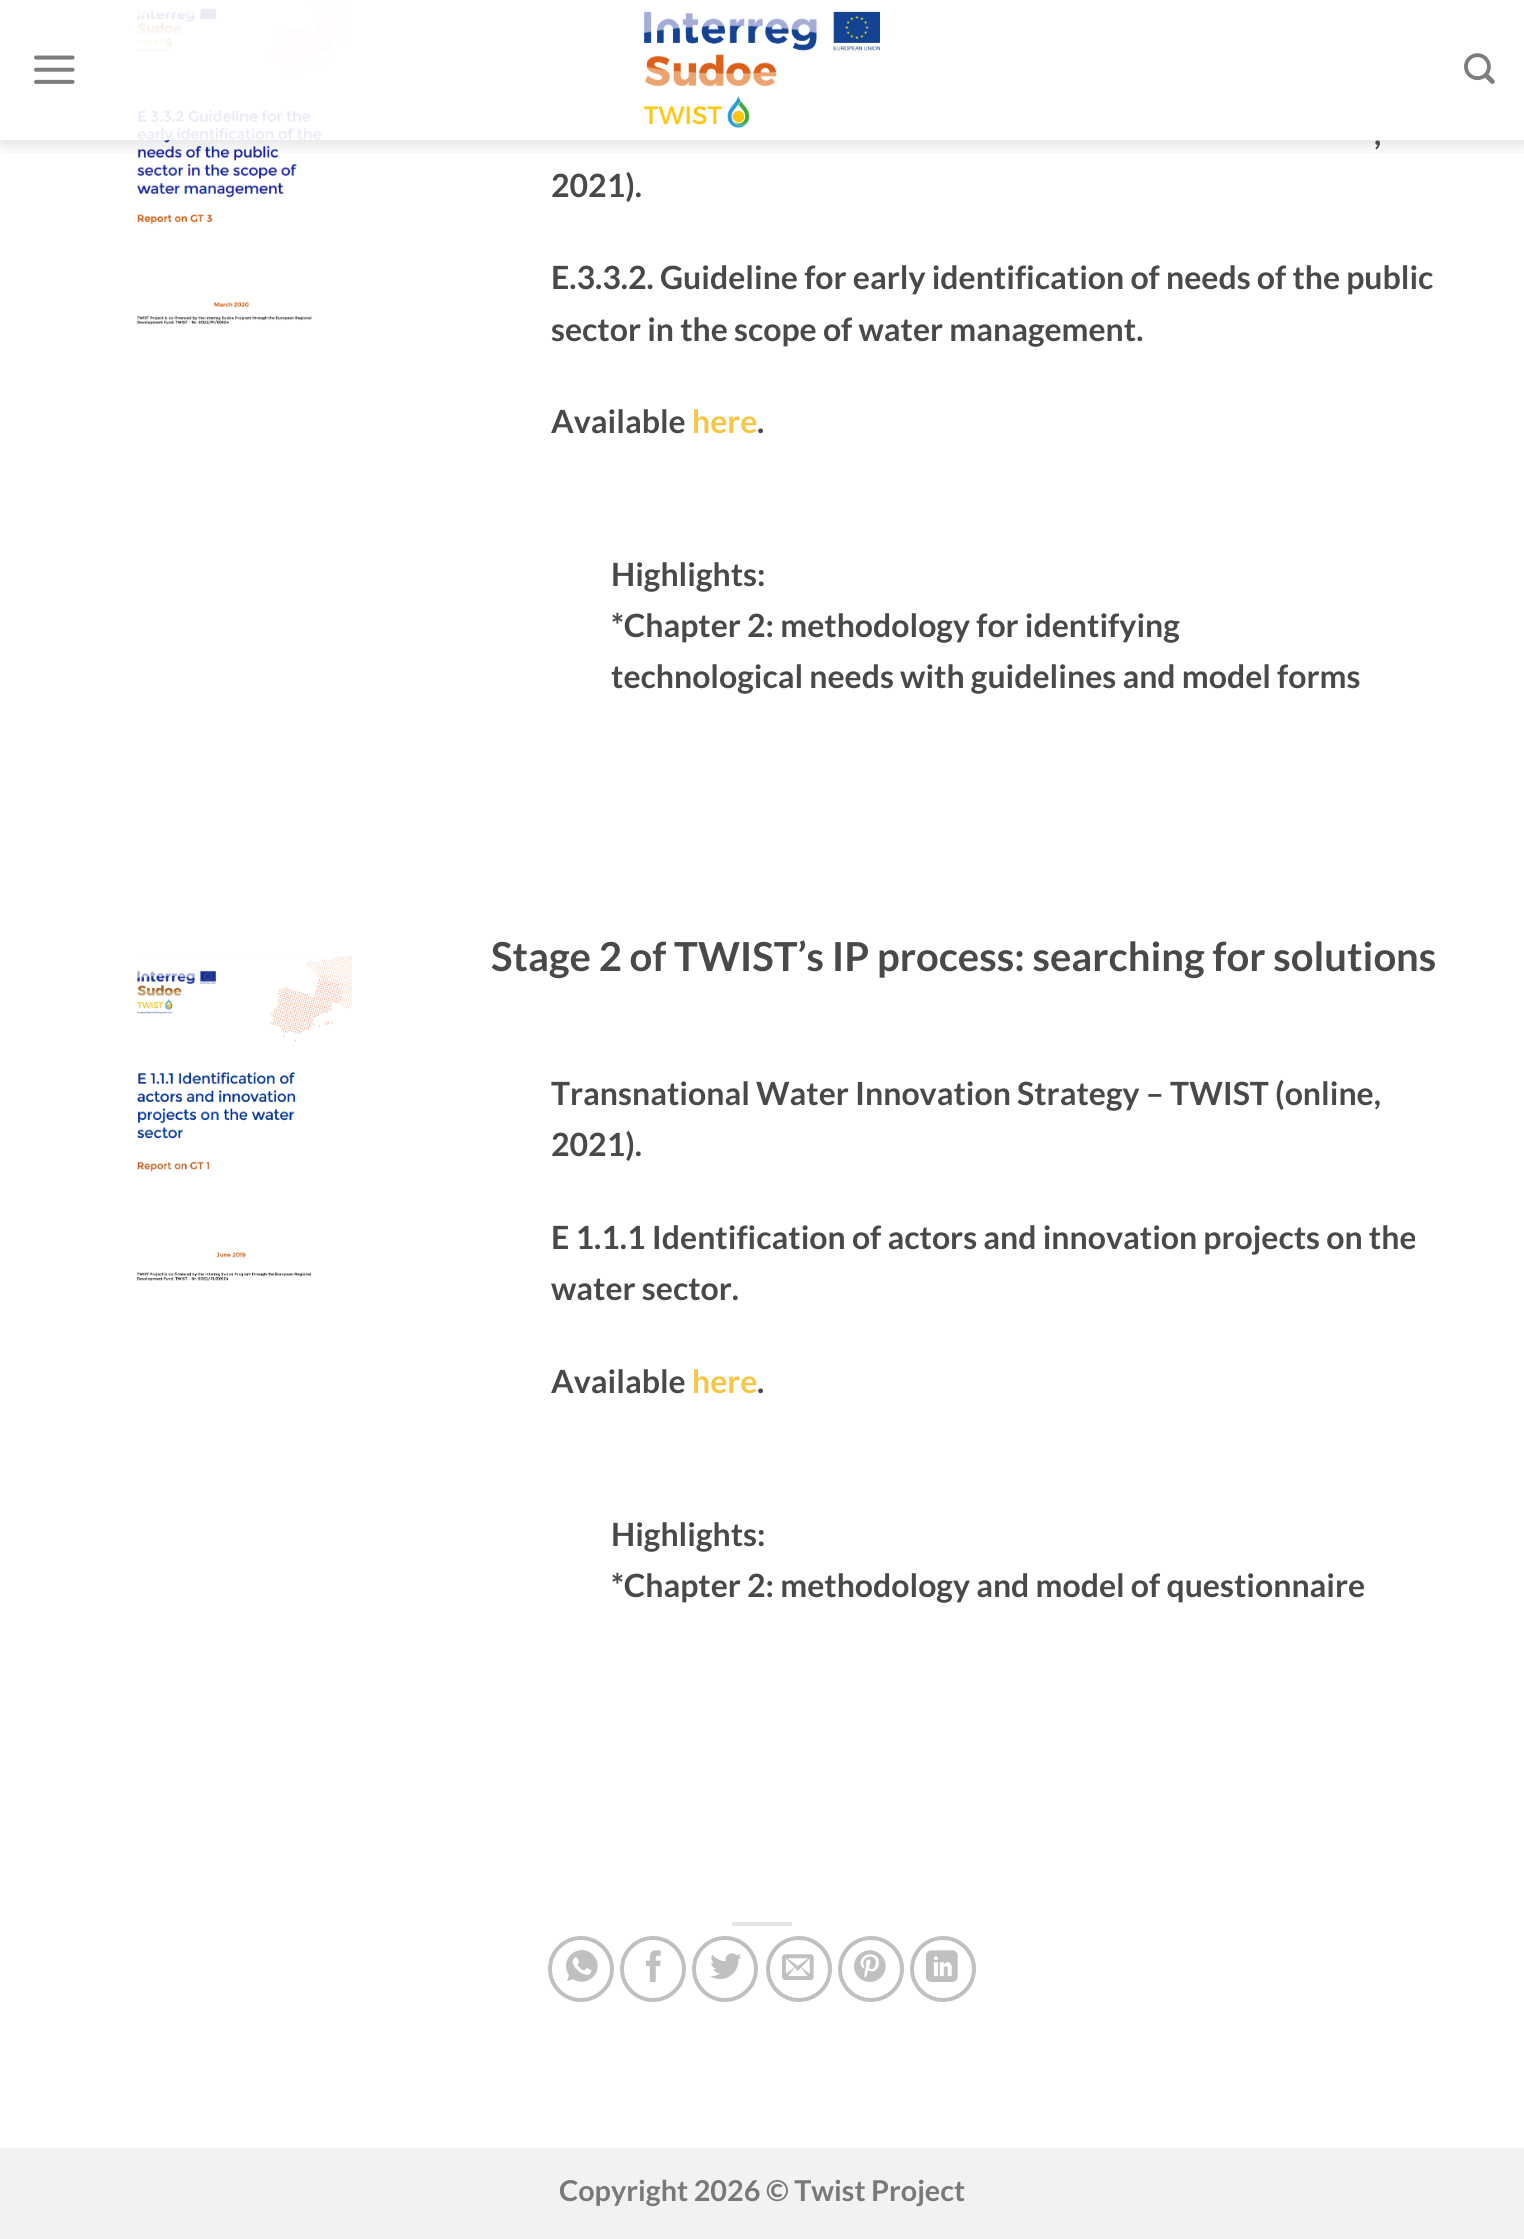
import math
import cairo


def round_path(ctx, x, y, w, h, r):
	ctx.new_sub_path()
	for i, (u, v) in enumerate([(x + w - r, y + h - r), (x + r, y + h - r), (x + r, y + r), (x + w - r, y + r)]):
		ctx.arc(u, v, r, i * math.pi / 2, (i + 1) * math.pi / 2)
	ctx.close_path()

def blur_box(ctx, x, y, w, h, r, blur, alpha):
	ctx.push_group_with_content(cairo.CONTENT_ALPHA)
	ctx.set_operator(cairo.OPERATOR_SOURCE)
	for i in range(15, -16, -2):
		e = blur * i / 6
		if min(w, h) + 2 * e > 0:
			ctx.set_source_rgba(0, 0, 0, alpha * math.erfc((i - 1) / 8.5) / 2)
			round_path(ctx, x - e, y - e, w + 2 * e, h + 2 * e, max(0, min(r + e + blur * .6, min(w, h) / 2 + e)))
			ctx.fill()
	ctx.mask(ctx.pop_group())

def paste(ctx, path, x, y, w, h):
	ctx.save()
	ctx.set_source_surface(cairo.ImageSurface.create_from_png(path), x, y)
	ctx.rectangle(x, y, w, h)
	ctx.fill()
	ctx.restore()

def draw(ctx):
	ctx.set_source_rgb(1, 1, 1)
	ctx.paint()
	paste(ctx, 'media/4.png', 136, 0, 216, 325)
	ctx.save()
	ctx.rectangle(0, 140, 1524, 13)
	ctx.clip()
	ctx.set_source_rgb(0, 0, 0)
	blur_box(ctx, 2, 2, 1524, 140, 0, 10, 0.15)
	ctx.restore()
	ctx.set_source_rgba(1, 1, 1, 0.9)
	ctx.rectangle(136, 0, 216, 140)
	ctx.fill()
	paste(ctx, 'media/1.png', 34, 55, 41, 29)
	paste(ctx, 'media/2.png', 643, 11, 237, 117)
	paste(ctx, 'media/3.png', 1464, 53, 31, 31)
	ctx.select_font_face('Lato', cairo.FONT_SLANT_NORMAL, cairo.FONT_WEIGHT_BOLD)
	ctx.set_font_size(32)
	ctx.set_source_rgb(0.286, 0.286, 0.286)
	for x, y, s in [
		(1374, 145, ','),
		(551, 197, '2021).'),
		(551, 289, 'E.3.3.2. Guideline for early identification of needs of the public'),
		(551, 341, 'sector in the scope of water management.'),
		(551, 433, 'Available'),
	]:
		ctx.move_to(x, y)
		ctx.show_text(s)
	ctx.set_source_rgb(0.965, 0.776, 0.271)
	ctx.move_to(692, 433)
	ctx.show_text('here')
	ctx.set_source_rgb(0.286, 0.286, 0.286)
	for x, y, s in [
		(757, 433, '.'),
		(611, 586, 'Highlights:'),
		(611, 637, '*Chapter 2: methodology for identifying'),
		(611, 688, 'technological needs with guidelines and model forms'),
	]:
		ctx.move_to(x, y)
		ctx.show_text(s)
	paste(ctx, 'media/5.png', 136, 956, 216, 325)
	ctx.set_font_size(40)
	ctx.move_to(491, 971)
	ctx.show_text('Stage 2 of TWIST’s IP process: searching for solutions')
	ctx.set_font_size(32)
	for x, y, s in [
		(551, 1105, 'Transnational Water Innovation Strategy – TWIST (online,'),
		(551, 1156, '2021).'),
		(551, 1249, 'E 1.1.1 Identification of actors and innovation projects on the'),
		(551, 1300, 'water sector.'),
		(551, 1393, 'Available'),
	]:
		ctx.move_to(x, y)
		ctx.show_text(s)
	ctx.set_source_rgb(0.965, 0.776, 0.271)
	ctx.move_to(692, 1393)
	ctx.show_text('here')
	ctx.set_source_rgb(0.286, 0.286, 0.286)
	for x, y, s in [
		(757, 1393, '.'),
		(611, 1546, 'Highlights:'),
		(611, 1597, '*Chapter 2: methodology and model of questionnaire'),
	]:
		ctx.move_to(x, y)
		ctx.show_text(s)
	ctx.set_source_rgb(0.902, 0.902, 0.902)
	ctx.rectangle(732, 1922, 60, 4)
	ctx.fill()
	ctx.arc(581, 1969, 31, 0, 2 * math.pi)
	ctx.set_source_rgb(0.753, 0.753, 0.753)
	ctx.set_line_width(4)
	ctx.stroke()
	paste(ctx, 'media/6.png', 566, 1950, 32, 32)
	ctx.arc(653, 1969, 31, 0, 2 * math.pi)
	ctx.stroke()
	paste(ctx, 'media/7.png', 645, 1950, 16, 32)
	ctx.arc(725, 1969, 31, 0, 2 * math.pi)
	ctx.stroke()
	paste(ctx, 'media/8.png', 710, 1953, 32, 26)
	ctx.arc(799, 1969, 31, 0, 2 * math.pi)
	ctx.stroke()
	paste(ctx, 'media/9.png', 782, 1954, 32, 26)
	ctx.arc(871, 1969, 31, 0, 2 * math.pi)
	ctx.stroke()
	paste(ctx, 'media/10.png', 854, 1950, 32, 32)
	ctx.arc(943, 1969, 31, 0, 2 * math.pi)
	ctx.stroke()
	paste(ctx, 'media/11.png', 926, 1950, 32, 32)
	ctx.set_source_rgb(0.949, 0.949, 0.949)
	ctx.rectangle(0, 2148, 1524, 91)
	ctx.fill()
	ctx.set_font_size(28.75)
	ctx.set_source_rgb(0.475, 0.475, 0.475)
	ctx.move_to(559, 2201)
	ctx.show_text('Copyright 2026 © Twist Project')


surface = cairo.ImageSurface(cairo.FORMAT_RGB24, 1524, 2239)
ctx = cairo.Context(surface)
options = cairo.FontOptions()
options.set_hint_metrics(cairo.HINT_METRICS_OFF)
options.set_hint_style(cairo.HINT_STYLE_NONE)
ctx.set_font_options(options)
ctx.set_miter_limit(4)
draw(ctx)
surface.write_to_png('image.png')
